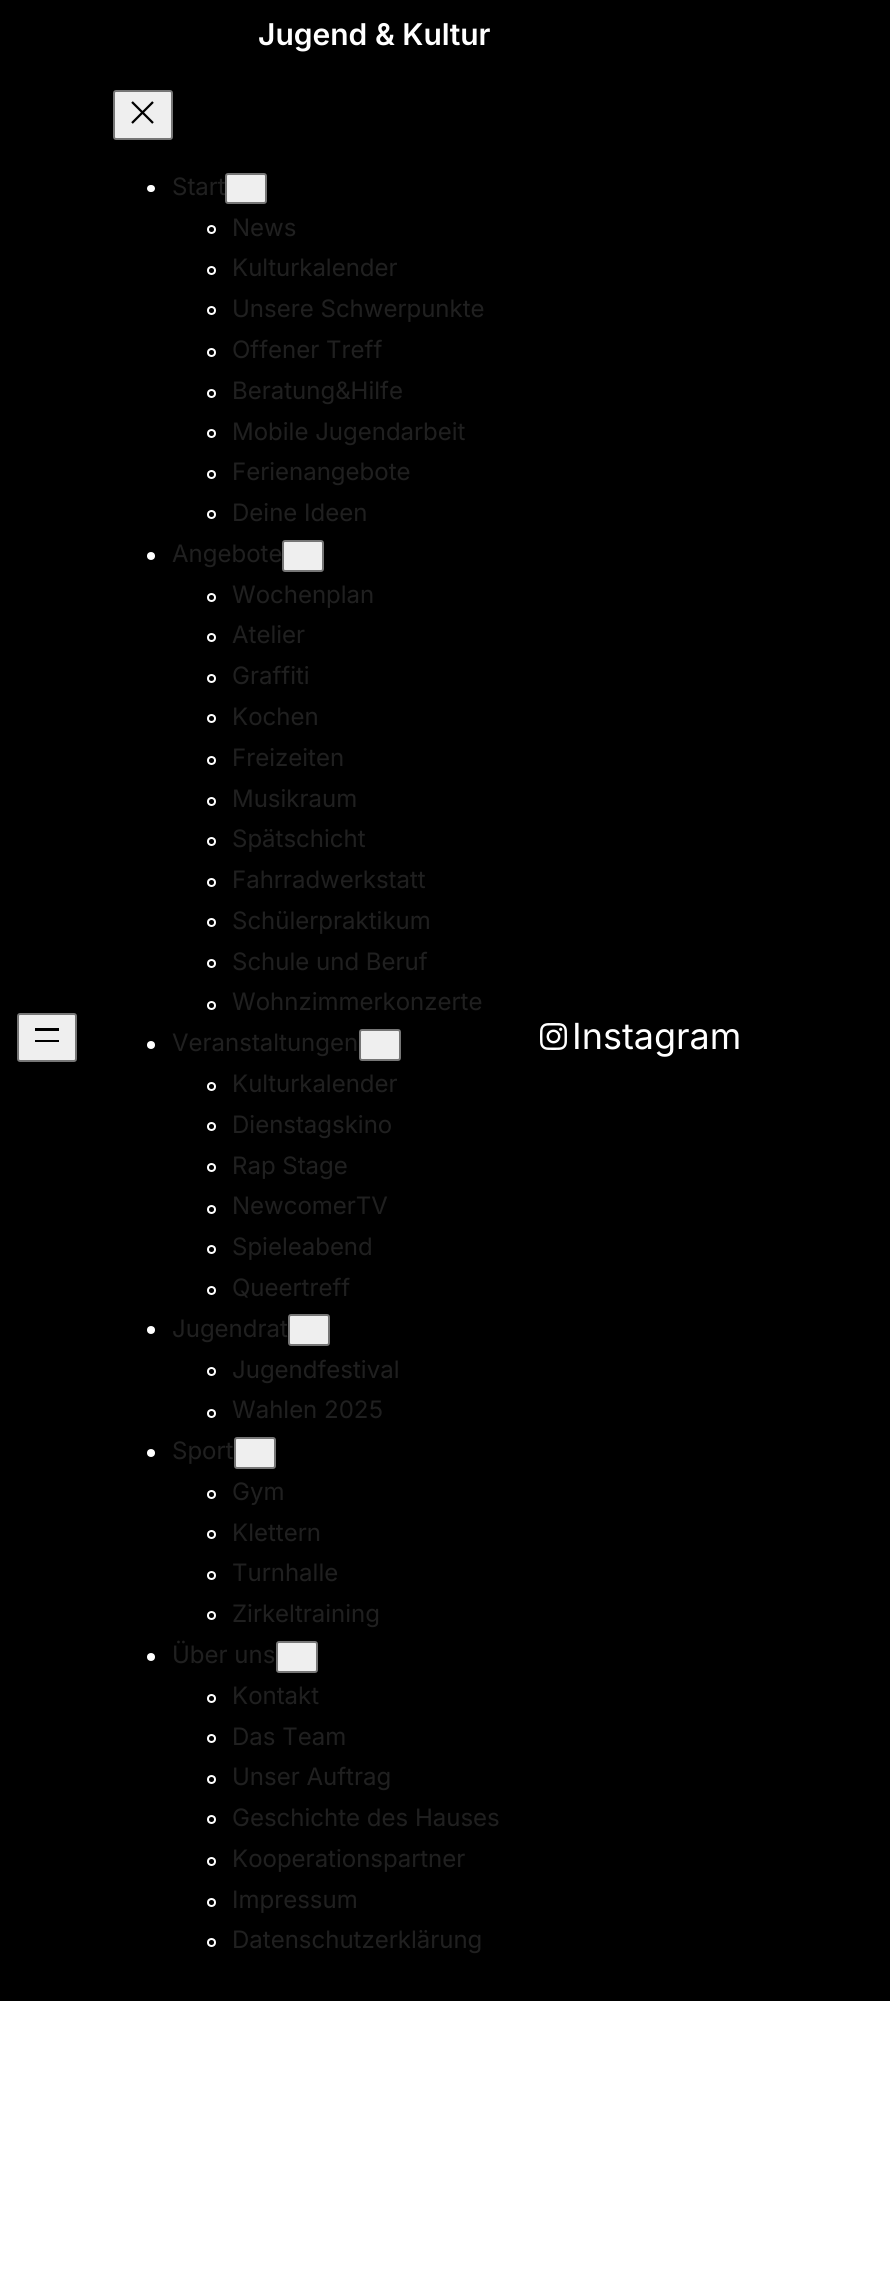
import math
import cairo


def round_path(ctx, x, y, w, h, r):
	ctx.new_sub_path()
	for i, (u, v) in enumerate([(x + w - r, y + h - r), (x + r, y + h - r), (x + r, y + r), (x + w - r, y + r)]):
		ctx.arc(u, v, r, i * math.pi / 2, (i + 1) * math.pi / 2)
	ctx.close_path()

def paste(ctx, path, x, y, w, h):
	ctx.save()
	ctx.set_source_surface(cairo.ImageSurface.create_from_png(path), x, y)
	ctx.rectangle(x, y, w, h)
	ctx.fill()
	ctx.restore()

def draw(ctx):
	ctx.set_source_rgb(1, 1, 1)
	ctx.paint()
	ctx.set_source_rgb(0, 0, 0)
	ctx.rectangle(0, 0, 890, 2001)
	ctx.fill()
	ctx.select_font_face('Inter SemiBold')
	ctx.set_font_size(30)
	ctx.set_source_rgb(1, 1, 1)
	ctx.move_to(258, 45)
	ctx.show_text('Jugend & Kultur')
	ctx.set_source_rgb(0.937, 0.937, 0.937)
	round_path(ctx, 18, 1014, 58, 47, 2)
	ctx.fill_preserve()
	ctx.set_source_rgb(0.463, 0.463, 0.463)
	ctx.stroke()
	ctx.set_source_rgb(0, 0, 0)
	ctx.rectangle(35, 1028, 24, 3)
	ctx.fill()
	ctx.rectangle(35, 1040, 24, 2)
	ctx.fill()
	ctx.set_source_rgb(0.937, 0.937, 0.937)
	round_path(ctx, 114, 91, 58, 48, 2)
	ctx.fill_preserve()
	ctx.set_source_rgb(0.463, 0.463, 0.463)
	ctx.stroke()
	paste(ctx, 'media/1.png', 131, 101, 23, 23)
	ctx.set_source_rgb(1, 1, 1)
	round_path(ctx, 147, 185, 8, 7, 3.5)
	ctx.fill()
	ctx.select_font_face('Inter')
	ctx.set_font_size(24)
	ctx.set_source_rgb(0.125, 0.125, 0.125)
	ctx.move_to(172, 195)
	ctx.show_text('Start')
	ctx.set_source_rgb(0.937, 0.937, 0.937)
	round_path(ctx, 226, 174, 40, 29, 2)
	ctx.fill_preserve()
	ctx.set_source_rgb(0.463, 0.463, 0.463)
	ctx.stroke()
	ctx.arc(211.5, 229.5, 3.5, 0, 2 * math.pi)
	ctx.set_source_rgb(1, 1, 1)
	ctx.stroke()
	ctx.set_source_rgb(0.125, 0.125, 0.125)
	ctx.move_to(232, 236)
	ctx.show_text('News')
	ctx.new_path()
	ctx.arc(211.5, 270.5, 3.5, 0, 2 * math.pi)
	ctx.set_source_rgb(1, 1, 1)
	ctx.stroke()
	ctx.set_source_rgb(0.125, 0.125, 0.125)
	ctx.move_to(232, 276)
	ctx.show_text('Kulturkalender')
	ctx.new_path()
	ctx.arc(211.5, 310.5, 3.5, 0, 2 * math.pi)
	ctx.set_source_rgb(1, 1, 1)
	ctx.stroke()
	ctx.set_source_rgb(0.125, 0.125, 0.125)
	ctx.move_to(232, 317)
	ctx.show_text('Unsere Schwerpunkte')
	ctx.new_path()
	ctx.arc(211.5, 352.5, 3.5, 0, 2 * math.pi)
	ctx.set_source_rgb(1, 1, 1)
	ctx.stroke()
	ctx.set_source_rgb(0.125, 0.125, 0.125)
	ctx.move_to(232, 358)
	ctx.show_text('Offener Treff')
	ctx.new_path()
	ctx.arc(211.5, 393.5, 3.5, 0, 2 * math.pi)
	ctx.set_source_rgb(1, 1, 1)
	ctx.stroke()
	ctx.set_source_rgb(0.125, 0.125, 0.125)
	ctx.move_to(232, 399)
	ctx.show_text('Beratung&Hilfe')
	ctx.new_path()
	ctx.arc(211.5, 433.5, 3.5, 0, 2 * math.pi)
	ctx.set_source_rgb(1, 1, 1)
	ctx.stroke()
	ctx.set_source_rgb(0.125, 0.125, 0.125)
	ctx.move_to(232, 440)
	ctx.show_text('Mobile Jugendarbeit')
	ctx.new_path()
	ctx.arc(211.5, 474.5, 3.5, 0, 2 * math.pi)
	ctx.set_source_rgb(1, 1, 1)
	ctx.stroke()
	ctx.set_source_rgb(0.125, 0.125, 0.125)
	ctx.move_to(232, 480)
	ctx.show_text('Ferienangebote')
	ctx.new_path()
	ctx.arc(211.5, 514.5, 3.5, 0, 2 * math.pi)
	ctx.set_source_rgb(1, 1, 1)
	ctx.stroke()
	ctx.set_source_rgb(0.125, 0.125, 0.125)
	ctx.move_to(232, 521)
	ctx.show_text('Deine Ideen')
	ctx.set_source_rgb(1, 1, 1)
	ctx.new_path()
	ctx.arc(151, 556, 4, 0, 2 * math.pi)
	ctx.fill()
	ctx.set_source_rgb(0.125, 0.125, 0.125)
	ctx.move_to(172, 562)
	ctx.show_text('Angebote')
	ctx.set_source_rgb(0.937, 0.937, 0.937)
	round_path(ctx, 283, 541, 40, 30, 2)
	ctx.fill_preserve()
	ctx.set_source_rgb(0.463, 0.463, 0.463)
	ctx.stroke()
	ctx.arc(211.5, 597.5, 3.5, 0, 2 * math.pi)
	ctx.set_source_rgb(1, 1, 1)
	ctx.stroke()
	ctx.set_source_rgb(0.125, 0.125, 0.125)
	ctx.move_to(232, 603)
	ctx.show_text('Wochenplan')
	ctx.new_path()
	ctx.arc(211.5, 637.5, 3.5, 0, 2 * math.pi)
	ctx.set_source_rgb(1, 1, 1)
	ctx.stroke()
	ctx.set_source_rgb(0.125, 0.125, 0.125)
	ctx.move_to(232, 643)
	ctx.show_text('Atelier')
	ctx.new_path()
	ctx.arc(211.5, 678.5, 3.5, 0, 2 * math.pi)
	ctx.set_source_rgb(1, 1, 1)
	ctx.stroke()
	ctx.set_source_rgb(0.125, 0.125, 0.125)
	ctx.move_to(232, 684)
	ctx.show_text('Graffiti')
	ctx.new_path()
	ctx.arc(211.5, 718.5, 3.5, 0, 2 * math.pi)
	ctx.set_source_rgb(1, 1, 1)
	ctx.stroke()
	ctx.set_source_rgb(0.125, 0.125, 0.125)
	ctx.move_to(232, 725)
	ctx.show_text('Kochen')
	ctx.new_path()
	ctx.arc(211.5, 760.5, 3.5, 0, 2 * math.pi)
	ctx.set_source_rgb(1, 1, 1)
	ctx.stroke()
	ctx.set_source_rgb(0.125, 0.125, 0.125)
	ctx.move_to(232, 766)
	ctx.show_text('Freizeiten')
	ctx.new_path()
	ctx.arc(211.5, 801.5, 3.5, 0, 2 * math.pi)
	ctx.set_source_rgb(1, 1, 1)
	ctx.stroke()
	ctx.set_source_rgb(0.125, 0.125, 0.125)
	ctx.move_to(232, 807)
	ctx.show_text('Musikraum')
	ctx.new_path()
	ctx.arc(211.5, 841.5, 3.5, 0, 2 * math.pi)
	ctx.set_source_rgb(1, 1, 1)
	ctx.stroke()
	ctx.set_source_rgb(0.125, 0.125, 0.125)
	ctx.move_to(232, 847)
	ctx.show_text('Spätschicht')
	ctx.new_path()
	ctx.arc(211.5, 882.5, 3.5, 0, 2 * math.pi)
	ctx.set_source_rgb(1, 1, 1)
	ctx.stroke()
	ctx.set_source_rgb(0.125, 0.125, 0.125)
	ctx.move_to(232, 888)
	ctx.show_text('Fahrradwerkstatt')
	ctx.new_path()
	ctx.arc(211.5, 922.5, 3.5, 0, 2 * math.pi)
	ctx.set_source_rgb(1, 1, 1)
	ctx.stroke()
	ctx.set_source_rgb(0.125, 0.125, 0.125)
	ctx.move_to(232, 929)
	ctx.show_text('Schülerpraktikum')
	ctx.new_path()
	ctx.arc(211.5, 963.5, 3.5, 0, 2 * math.pi)
	ctx.set_source_rgb(1, 1, 1)
	ctx.stroke()
	ctx.set_source_rgb(0.125, 0.125, 0.125)
	ctx.move_to(232, 970)
	ctx.show_text('Schule und Beruf')
	ctx.new_path()
	ctx.arc(211.5, 1005.5, 3.5, 0, 2 * math.pi)
	ctx.set_source_rgb(1, 1, 1)
	ctx.stroke()
	ctx.set_source_rgb(0.125, 0.125, 0.125)
	ctx.move_to(232, 1010)
	ctx.show_text('Wohnzimmerkonzerte')
	ctx.set_source_rgb(1, 1, 1)
	ctx.new_path()
	ctx.arc(151, 1045, 4, 0, 2 * math.pi)
	ctx.fill()
	ctx.set_source_rgb(0.125, 0.125, 0.125)
	ctx.move_to(172, 1051)
	ctx.show_text('Veranstaltungen')
	ctx.set_source_rgb(0.937, 0.937, 0.937)
	round_path(ctx, 360, 1030, 40, 30, 2)
	ctx.fill_preserve()
	ctx.set_source_rgb(0.463, 0.463, 0.463)
	ctx.stroke()
	ctx.arc(211.5, 1086.5, 3.5, 0, 2 * math.pi)
	ctx.set_source_rgb(1, 1, 1)
	ctx.stroke()
	ctx.set_source_rgb(0.125, 0.125, 0.125)
	ctx.move_to(232, 1092)
	ctx.show_text('Kulturkalender')
	ctx.new_path()
	ctx.arc(211.5, 1126.5, 3.5, 0, 2 * math.pi)
	ctx.set_source_rgb(1, 1, 1)
	ctx.stroke()
	ctx.set_source_rgb(0.125, 0.125, 0.125)
	ctx.move_to(232, 1133)
	ctx.show_text('Dienstagskino')
	ctx.new_path()
	ctx.arc(211.5, 1167.5, 3.5, 0, 2 * math.pi)
	ctx.set_source_rgb(1, 1, 1)
	ctx.stroke()
	ctx.set_source_rgb(0.125, 0.125, 0.125)
	ctx.move_to(232, 1174)
	ctx.show_text('Rap Stage')
	ctx.new_path()
	ctx.arc(211.5, 1209.5, 3.5, 0, 2 * math.pi)
	ctx.set_source_rgb(1, 1, 1)
	ctx.stroke()
	ctx.set_source_rgb(0.125, 0.125, 0.125)
	ctx.move_to(232, 1214)
	ctx.show_text('NewcomerTV')
	ctx.new_path()
	ctx.arc(211.5, 1249.5, 3.5, 0, 2 * math.pi)
	ctx.set_source_rgb(1, 1, 1)
	ctx.stroke()
	ctx.set_source_rgb(0.125, 0.125, 0.125)
	ctx.move_to(232, 1255)
	ctx.show_text('Spieleabend')
	ctx.new_path()
	ctx.arc(211.5, 1290.5, 3.5, 0, 2 * math.pi)
	ctx.set_source_rgb(1, 1, 1)
	ctx.stroke()
	ctx.set_source_rgb(0.125, 0.125, 0.125)
	ctx.move_to(232, 1296)
	ctx.show_text('Queertreff')
	ctx.set_source_rgb(1, 1, 1)
	ctx.new_path()
	ctx.arc(151, 1330, 4, 0, 2 * math.pi)
	ctx.fill()
	ctx.set_source_rgb(0.125, 0.125, 0.125)
	ctx.move_to(172, 1337)
	ctx.show_text('Jugendrat')
	ctx.set_source_rgb(0.937, 0.937, 0.937)
	round_path(ctx, 289, 1315, 40, 30, 2)
	ctx.fill_preserve()
	ctx.set_source_rgb(0.463, 0.463, 0.463)
	ctx.stroke()
	ctx.arc(211.5, 1371.5, 3.5, 0, 2 * math.pi)
	ctx.set_source_rgb(1, 1, 1)
	ctx.stroke()
	ctx.set_source_rgb(0.125, 0.125, 0.125)
	ctx.move_to(232, 1378)
	ctx.show_text('Jugendfestival')
	ctx.new_path()
	ctx.arc(211.5, 1413.5, 3.5, 0, 2 * math.pi)
	ctx.set_source_rgb(1, 1, 1)
	ctx.stroke()
	ctx.set_source_rgb(0.125, 0.125, 0.125)
	ctx.move_to(232, 1418)
	ctx.show_text('Wahlen 2025')
	ctx.set_source_rgb(1, 1, 1)
	ctx.new_path()
	ctx.arc(151, 1453, 4, 0, 2 * math.pi)
	ctx.fill()
	ctx.set_source_rgb(0.125, 0.125, 0.125)
	ctx.move_to(172, 1459)
	ctx.show_text('Sport')
	ctx.set_source_rgb(0.937, 0.937, 0.937)
	round_path(ctx, 235, 1438, 40, 30, 2)
	ctx.fill_preserve()
	ctx.set_source_rgb(0.463, 0.463, 0.463)
	ctx.stroke()
	ctx.arc(211.5, 1494.5, 3.5, 0, 2 * math.pi)
	ctx.set_source_rgb(1, 1, 1)
	ctx.stroke()
	ctx.set_source_rgb(0.125, 0.125, 0.125)
	ctx.move_to(232, 1500)
	ctx.show_text('Gym')
	ctx.new_path()
	ctx.arc(211.5, 1534.5, 3.5, 0, 2 * math.pi)
	ctx.set_source_rgb(1, 1, 1)
	ctx.stroke()
	ctx.set_source_rgb(0.125, 0.125, 0.125)
	ctx.move_to(232, 1541)
	ctx.show_text('Klettern')
	ctx.new_path()
	ctx.arc(211.5, 1575.5, 3.5, 0, 2 * math.pi)
	ctx.set_source_rgb(1, 1, 1)
	ctx.stroke()
	ctx.set_source_rgb(0.125, 0.125, 0.125)
	ctx.move_to(232, 1581)
	ctx.show_text('Turnhalle')
	ctx.new_path()
	ctx.arc(211.5, 1615.5, 3.5, 0, 2 * math.pi)
	ctx.set_source_rgb(1, 1, 1)
	ctx.stroke()
	ctx.set_source_rgb(0.125, 0.125, 0.125)
	ctx.move_to(232, 1622)
	ctx.show_text('Zirkeltraining')
	ctx.set_source_rgb(1, 1, 1)
	ctx.new_path()
	ctx.arc(151, 1657, 4, 0, 2 * math.pi)
	ctx.fill()
	ctx.set_source_rgb(0.125, 0.125, 0.125)
	ctx.move_to(172, 1663)
	ctx.show_text('Über uns')
	ctx.set_source_rgb(0.937, 0.937, 0.937)
	round_path(ctx, 277, 1642, 40, 30, 2)
	ctx.fill_preserve()
	ctx.set_source_rgb(0.463, 0.463, 0.463)
	ctx.stroke()
	ctx.arc(211.5, 1698.5, 3.5, 0, 2 * math.pi)
	ctx.set_source_rgb(1, 1, 1)
	ctx.stroke()
	ctx.set_source_rgb(0.125, 0.125, 0.125)
	ctx.move_to(232, 1704)
	ctx.show_text('Kontakt')
	ctx.new_path()
	ctx.arc(211.5, 1738.5, 3.5, 0, 2 * math.pi)
	ctx.set_source_rgb(1, 1, 1)
	ctx.stroke()
	ctx.set_source_rgb(0.125, 0.125, 0.125)
	ctx.move_to(232, 1745)
	ctx.show_text('Das Team')
	ctx.new_path()
	ctx.arc(211.5, 1779.5, 3.5, 0, 2 * math.pi)
	ctx.set_source_rgb(1, 1, 1)
	ctx.stroke()
	ctx.set_source_rgb(0.125, 0.125, 0.125)
	ctx.move_to(232, 1785)
	ctx.show_text('Unser Auftrag')
	ctx.new_path()
	ctx.arc(211.5, 1819.5, 3.5, 0, 2 * math.pi)
	ctx.set_source_rgb(1, 1, 1)
	ctx.stroke()
	ctx.set_source_rgb(0.125, 0.125, 0.125)
	ctx.move_to(232, 1826)
	ctx.show_text('Geschichte des Hauses')
	ctx.new_path()
	ctx.arc(211.5, 1861.5, 3.5, 0, 2 * math.pi)
	ctx.set_source_rgb(1, 1, 1)
	ctx.stroke()
	ctx.set_source_rgb(0.125, 0.125, 0.125)
	ctx.move_to(232, 1867)
	ctx.show_text('Kooperationspartner')
	ctx.new_path()
	ctx.arc(211.5, 1902.5, 3.5, 0, 2 * math.pi)
	ctx.set_source_rgb(1, 1, 1)
	ctx.stroke()
	ctx.set_source_rgb(0.125, 0.125, 0.125)
	ctx.move_to(232, 1908)
	ctx.show_text('Impressum')
	ctx.new_path()
	ctx.arc(211.5, 1942.5, 3.5, 0, 2 * math.pi)
	ctx.set_source_rgb(1, 1, 1)
	ctx.stroke()
	ctx.set_source_rgb(0.125, 0.125, 0.125)
	ctx.move_to(232, 1948)
	ctx.show_text('Datenschutzerklärung')
	paste(ctx, 'media/2.png', 540, 1023, 27, 27)
	ctx.set_font_size(36)
	ctx.set_source_rgb(1, 1, 1)
	ctx.move_to(572, 1049)
	ctx.show_text('Instagram')


surface = cairo.ImageSurface(cairo.FORMAT_RGB24, 890, 2290)
ctx = cairo.Context(surface)
options = cairo.FontOptions()
options.set_hint_metrics(cairo.HINT_METRICS_OFF)
options.set_hint_style(cairo.HINT_STYLE_NONE)
ctx.set_font_options(options)
ctx.set_miter_limit(4)
draw(ctx)
surface.write_to_png('image.png')
